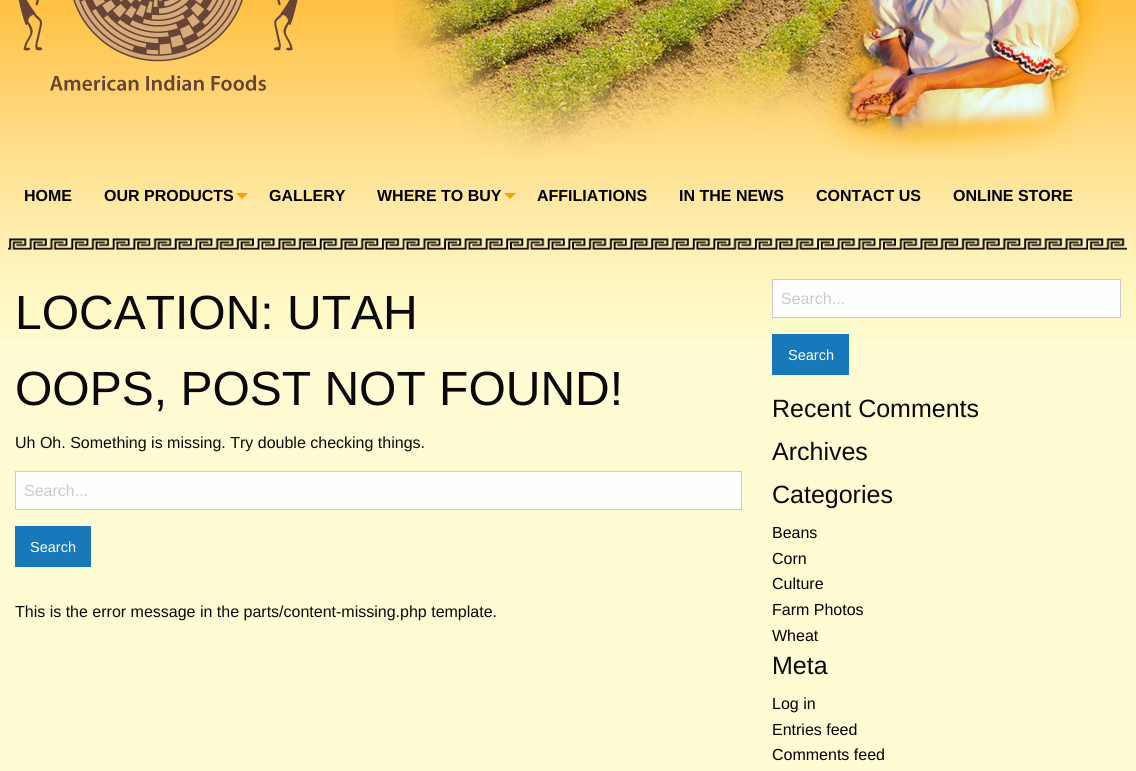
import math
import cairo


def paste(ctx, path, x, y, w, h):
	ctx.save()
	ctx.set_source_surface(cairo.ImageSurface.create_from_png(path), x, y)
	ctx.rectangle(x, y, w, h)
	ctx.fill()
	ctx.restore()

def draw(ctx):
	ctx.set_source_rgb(1, 0.984, 0.824)
	ctx.paint()
	paste(ctx, 'media/1.png', 0, 0, 1136, 339)
	paste(ctx, 'media/2.png', 18, 0, 280, 91)
	paste(ctx, 'media/3.png', 394, 0, 708, 159)
	ctx.select_font_face('Liberation Sans', cairo.FONT_SLANT_NORMAL, cairo.FONT_WEIGHT_BOLD)
	ctx.set_font_size(16)
	ctx.set_source_rgb(0, 0, 0)
	ctx.move_to(24, 201)
	ctx.show_text('HOME')
	ctx.move_to(104, 201)
	ctx.show_text('OUR PRODUCTS')
	ctx.set_source_rgb(1, 0.616, 0.004)
	ctx.new_path()
	ctx.move_to(236, 193)
	ctx.line_to(248, 193)
	ctx.line_to(242, 199)
	ctx.close_path()
	ctx.fill()
	ctx.set_source_rgb(0, 0, 0)
	ctx.move_to(269, 201)
	ctx.show_text('GALLERY')
	ctx.move_to(377, 201)
	ctx.show_text('WHERE TO BUY')
	ctx.set_source_rgb(1, 0.616, 0.004)
	ctx.new_path()
	ctx.move_to(504, 193)
	ctx.line_to(516, 193)
	ctx.line_to(510, 199)
	ctx.close_path()
	ctx.fill()
	ctx.set_source_rgb(0, 0, 0)
	for x, y, s in [
		(537, 201, 'AFFILIATIONS'),
		(679, 201, 'IN THE NEWS'),
		(816, 201, 'CONTACT US'),
		(953, 201, 'ONLINE STORE'),
	]:
		ctx.move_to(x, y)
		ctx.show_text(s)
	paste(ctx, 'media/4.png', 8, 238, 1119, 12)
	ctx.select_font_face('Liberation Sans')
	ctx.set_font_size(48)
	ctx.set_source_rgb(0.039, 0.039, 0.039)
	ctx.move_to(15, 329)
	ctx.show_text('LOCATION: UTAH')
	ctx.move_to(15, 405)
	ctx.show_text('OOPS, POST NOT FOUND!')
	ctx.set_font_size(16)
	ctx.move_to(15, 448)
	ctx.show_text('Uh Oh. Something is missing. Try double checking things.')
	ctx.set_source_rgb(0.996, 0.996, 0.996)
	ctx.rectangle(15.5, 471.5, 726, 38)
	ctx.fill_preserve()
	ctx.set_source_rgb(0.792, 0.792, 0.792)
	ctx.set_line_width(1)
	ctx.stroke()
	ctx.move_to(24, 496)
	ctx.show_text('Search...')
	ctx.set_source_rgb(0.09, 0.475, 0.729)
	ctx.rectangle(15, 526, 76, 41)
	ctx.fill()
	ctx.set_font_size(14.5)
	ctx.set_source_rgb(0.996, 0.996, 0.996)
	ctx.move_to(30, 552)
	ctx.show_text('Search')
	ctx.set_font_size(16)
	ctx.set_source_rgb(0.039, 0.039, 0.039)
	ctx.move_to(15, 617)
	ctx.show_text('This is the error message in the parts/content-missing.php template.')
	ctx.set_source_rgb(0.996, 0.996, 0.996)
	ctx.rectangle(772.5, 279.5, 348, 38)
	ctx.fill_preserve()
	ctx.set_source_rgb(0.792, 0.792, 0.792)
	ctx.stroke()
	ctx.move_to(781, 304)
	ctx.show_text('Search...')
	ctx.set_source_rgb(0.09, 0.475, 0.729)
	ctx.rectangle(772, 334, 77, 41)
	ctx.fill()
	ctx.set_font_size(14.5)
	ctx.set_source_rgb(0.996, 0.996, 0.996)
	ctx.move_to(788, 360)
	ctx.show_text('Search')
	ctx.set_font_size(25)
	ctx.set_source_rgb(0.039, 0.039, 0.039)
	for x, y, s in [
		(772, 417, 'Recent Comments'),
		(772, 460, 'Archives'),
		(772, 503, 'Categories'),
	]:
		ctx.move_to(x, y)
		ctx.show_text(s)
	ctx.set_font_size(16)
	ctx.set_source_rgb(0, 0, 0)
	for x, y, s in [
		(772, 538, 'Beans'),
		(772, 564, 'Corn'),
		(772, 589, 'Culture'),
		(772, 615, 'Farm Photos'),
		(772, 641, 'Wheat'),
	]:
		ctx.move_to(x, y)
		ctx.show_text(s)
	ctx.set_font_size(25)
	ctx.set_source_rgb(0.039, 0.039, 0.039)
	ctx.move_to(772, 674)
	ctx.show_text('Meta')
	ctx.set_font_size(16)
	ctx.set_source_rgb(0, 0, 0)
	for x, y, s in [
		(772, 709, 'Log in'),
		(772, 735, 'Entries feed'),
		(772, 760, 'Comments feed'),
	]:
		ctx.move_to(x, y)
		ctx.show_text(s)


surface = cairo.ImageSurface(cairo.FORMAT_RGB24, 1136, 771)
ctx = cairo.Context(surface)
options = cairo.FontOptions()
options.set_hint_metrics(cairo.HINT_METRICS_OFF)
options.set_hint_style(cairo.HINT_STYLE_NONE)
ctx.set_font_options(options)
ctx.set_miter_limit(4)
draw(ctx)
surface.write_to_png('image.png')
